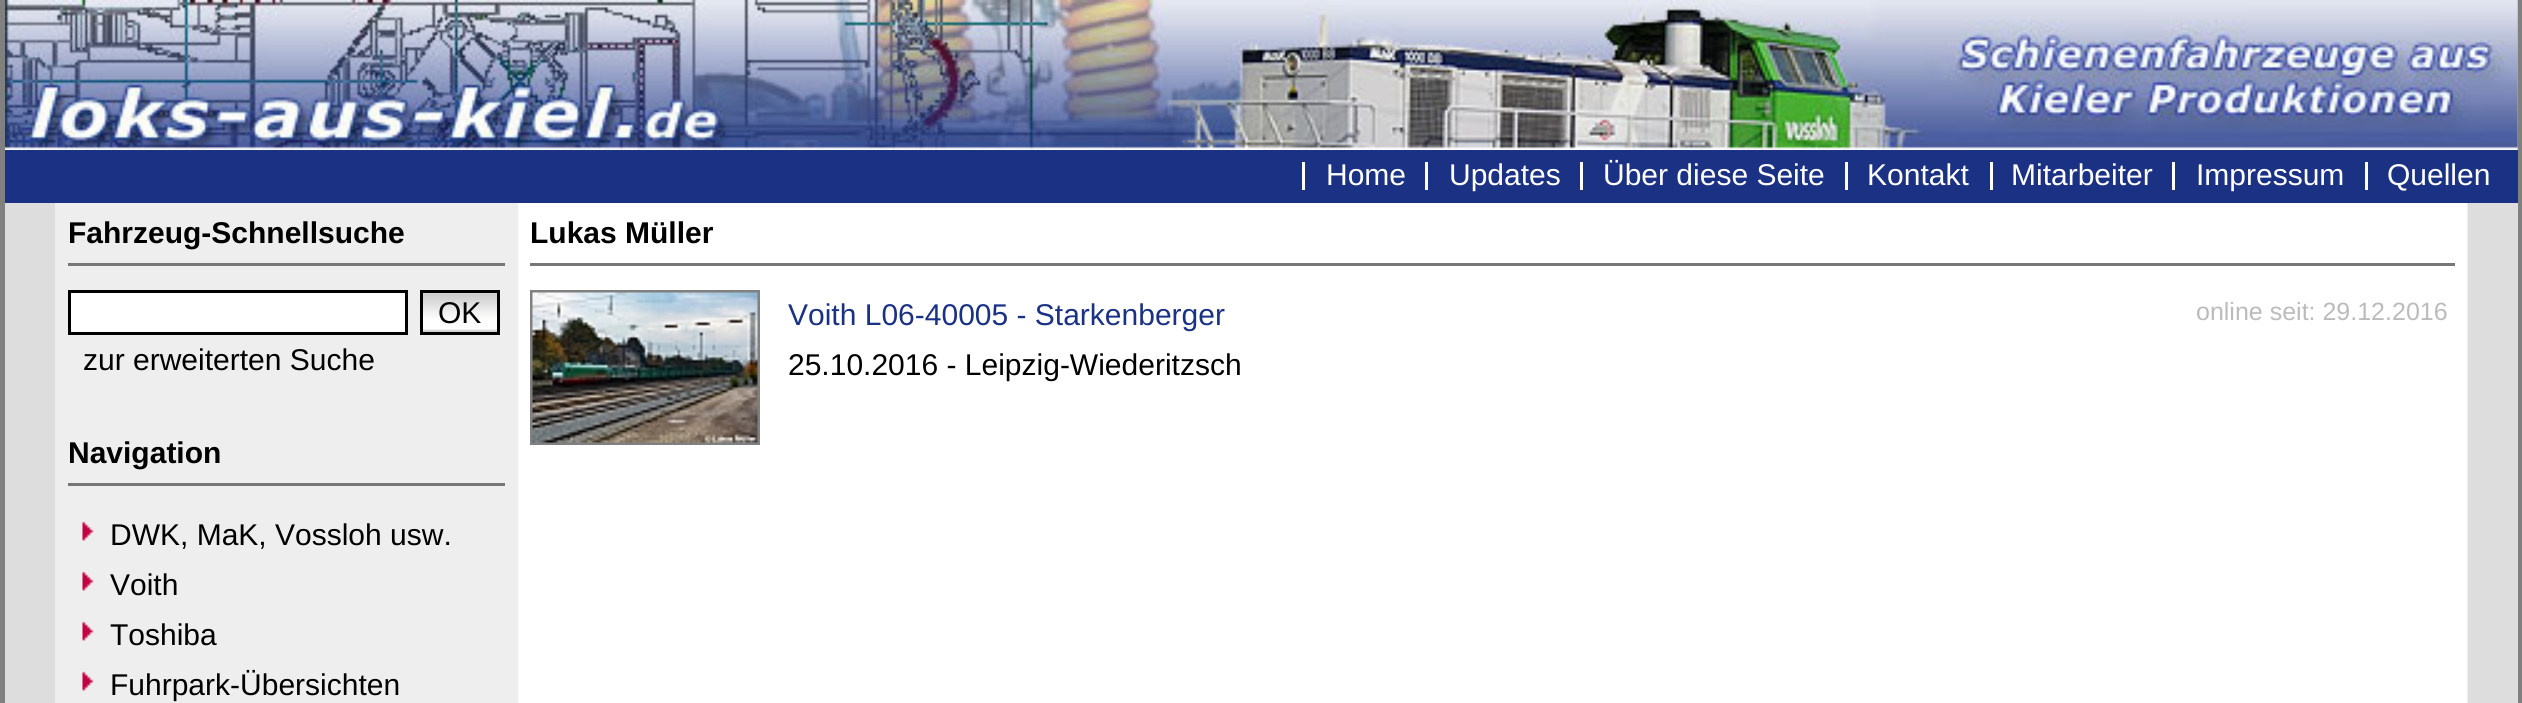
import math
import cairo


def paste(ctx, path, x, y, w, h):
	ctx.save()
	ctx.set_source_surface(cairo.ImageSurface.create_from_png(path), x, y)
	ctx.rectangle(x, y, w, h)
	ctx.fill()
	ctx.restore()

def draw(ctx):
	ctx.set_source_rgb(0.502, 0.502, 0.502)
	ctx.paint()
	paste(ctx, 'media/1.png', 518, 0, 2000, 703)
	paste(ctx, 'media/2.png', 5, 0, 2513, 150)
	ctx.set_source_rgb(0.106, 0.196, 0.518)
	ctx.rectangle(5, 150, 2513, 53)
	ctx.fill()
	ctx.select_font_face('Liberation Sans')
	ctx.set_font_size(30)
	ctx.set_source_rgb(1, 1, 1)
	ctx.move_to(1326, 185)
	ctx.show_text('Home')
	ctx.rectangle(1302, 162, 3, 28)
	ctx.fill()
	ctx.move_to(1449, 185)
	ctx.show_text('Updates')
	ctx.rectangle(1425, 162, 3, 28)
	ctx.fill()
	ctx.move_to(1603, 185)
	ctx.show_text('Über diese Seite')
	ctx.rectangle(1580, 162, 3, 28)
	ctx.fill()
	ctx.move_to(1867, 185)
	ctx.show_text('Kontakt')
	ctx.rectangle(1845, 162, 3, 28)
	ctx.fill()
	ctx.move_to(2011, 185)
	ctx.show_text('Mitarbeiter')
	ctx.rectangle(1990, 162, 3, 28)
	ctx.fill()
	ctx.move_to(2196, 185)
	ctx.show_text('Impressum')
	ctx.rectangle(2172, 162, 3, 28)
	ctx.fill()
	ctx.move_to(2387, 185)
	ctx.show_text('Quellen')
	ctx.rectangle(2365, 162, 3, 28)
	ctx.fill()
	ctx.set_source_rgb(0.867, 0.867, 0.867)
	ctx.rectangle(5, 203, 50, 500)
	ctx.fill()
	ctx.set_source_rgb(0.933, 0.933, 0.933)
	ctx.rectangle(55, 203, 463, 500)
	ctx.fill()
	ctx.set_source_rgb(0.467, 0.467, 0.467)
	ctx.rectangle(68, 263, 437, 3)
	ctx.fill()
	ctx.select_font_face('Liberation Sans', cairo.FONT_SLANT_NORMAL, cairo.FONT_WEIGHT_BOLD)
	ctx.set_source_rgb(0, 0, 0)
	ctx.move_to(68, 243)
	ctx.show_text('Fahrzeug-Schnellsuche')
	ctx.set_source_rgb(1, 1, 1)
	ctx.rectangle(69.5, 291.5, 337, 42)
	ctx.fill_preserve()
	ctx.set_source_rgb(0, 0, 0)
	ctx.set_line_width(3)
	ctx.stroke()
	paste(ctx, 'media/3.png', 423, 293, 74, 39)
	ctx.rectangle(421.5, 291.5, 77, 42)
	ctx.stroke()
	ctx.select_font_face('Liberation Sans')
	ctx.move_to(438, 323)
	ctx.show_text('OK')
	ctx.move_to(83, 370)
	ctx.show_text('zur erweiterten Suche')
	ctx.set_source_rgb(0.467, 0.467, 0.467)
	ctx.rectangle(68, 483, 437, 3)
	ctx.fill()
	ctx.select_font_face('Liberation Sans', cairo.FONT_SLANT_NORMAL, cairo.FONT_WEIGHT_BOLD)
	ctx.set_source_rgb(0, 0, 0)
	ctx.move_to(68, 463)
	ctx.show_text('Navigation')
	paste(ctx, 'media/4.png', 82, 521, 12, 20)
	ctx.select_font_face('Liberation Sans')
	ctx.move_to(110, 545)
	ctx.show_text('DWK, MaK, Vossloh usw.')
	paste(ctx, 'media/4.png', 82, 571, 12, 20)
	ctx.move_to(110, 595)
	ctx.show_text('Voith')
	paste(ctx, 'media/4.png', 82, 621, 12, 20)
	ctx.move_to(110, 645)
	ctx.show_text('Toshiba')
	paste(ctx, 'media/4.png', 82, 671, 12, 20)
	ctx.move_to(110, 695)
	ctx.show_text('Fuhrpark-Übersichten')
	ctx.set_source_rgb(0.467, 0.467, 0.467)
	ctx.rectangle(530, 263, 1925, 3)
	ctx.fill()
	ctx.select_font_face('Liberation Sans', cairo.FONT_SLANT_NORMAL, cairo.FONT_WEIGHT_BOLD)
	ctx.set_source_rgb(0, 0, 0)
	ctx.move_to(530, 243)
	ctx.show_text('Lukas Müller')
	ctx.rectangle(531.5, 291.5, 227, 152)
	ctx.set_source_rgb(0.502, 0.502, 0.502)
	ctx.stroke()
	paste(ctx, 'media/5.png', 532, 292, 226, 151)
	ctx.select_font_face('Liberation Sans')
	ctx.set_source_rgb(0.106, 0.196, 0.518)
	ctx.move_to(788, 325)
	ctx.show_text('Voith L06-40005 - Starkenberger')
	ctx.set_font_size(25)
	ctx.set_source_rgb(0.733, 0.733, 0.733)
	ctx.move_to(2196, 320)
	ctx.show_text('online seit: 29.12.2016')
	ctx.set_font_size(30)
	ctx.set_source_rgb(0, 0, 0)
	ctx.move_to(788, 375)
	ctx.show_text('25.10.2016 - Leipzig-Wiederitzsch')
	ctx.set_source_rgb(0.867, 0.867, 0.867)
	ctx.rectangle(2468, 203, 50, 500)
	ctx.fill()


surface = cairo.ImageSurface(cairo.FORMAT_RGB24, 2522, 703)
ctx = cairo.Context(surface)
options = cairo.FontOptions()
options.set_hint_metrics(cairo.HINT_METRICS_OFF)
options.set_hint_style(cairo.HINT_STYLE_NONE)
ctx.set_font_options(options)
ctx.set_miter_limit(4)
draw(ctx)
surface.write_to_png('image.png')
